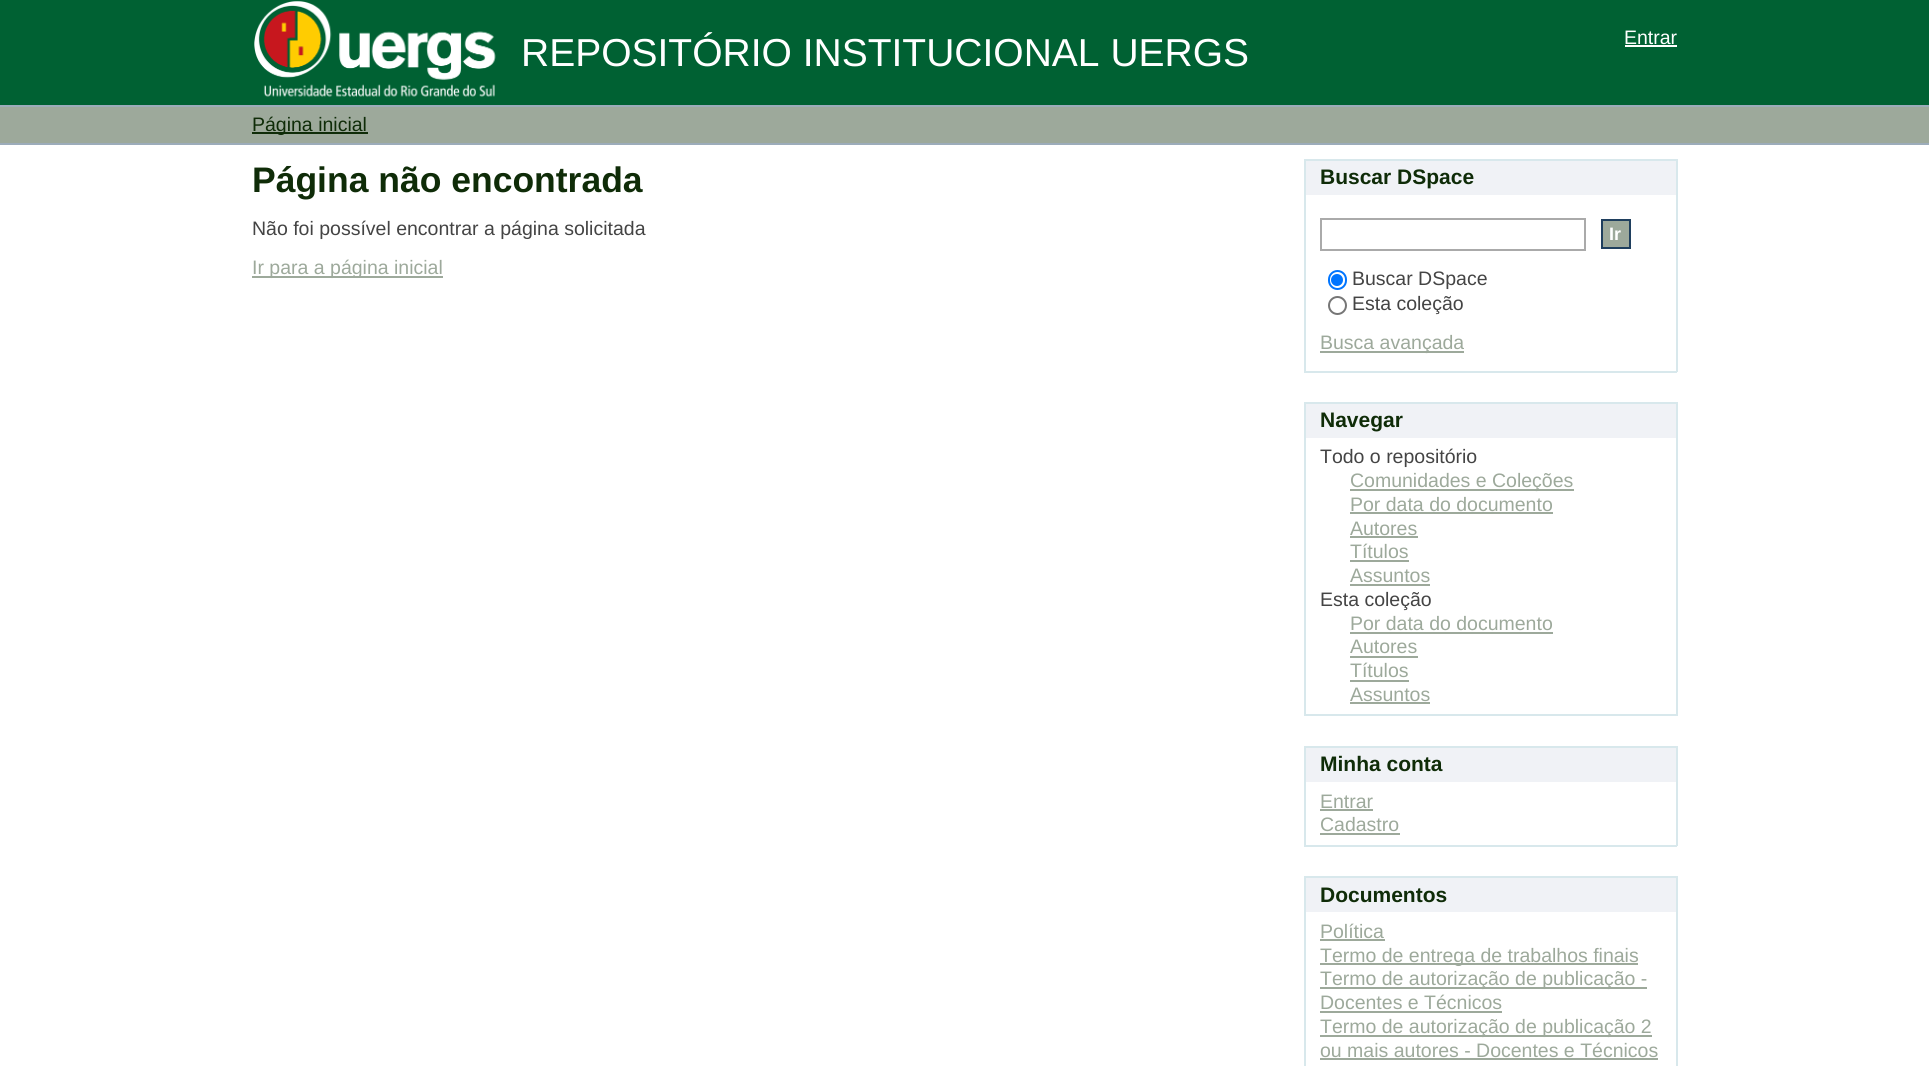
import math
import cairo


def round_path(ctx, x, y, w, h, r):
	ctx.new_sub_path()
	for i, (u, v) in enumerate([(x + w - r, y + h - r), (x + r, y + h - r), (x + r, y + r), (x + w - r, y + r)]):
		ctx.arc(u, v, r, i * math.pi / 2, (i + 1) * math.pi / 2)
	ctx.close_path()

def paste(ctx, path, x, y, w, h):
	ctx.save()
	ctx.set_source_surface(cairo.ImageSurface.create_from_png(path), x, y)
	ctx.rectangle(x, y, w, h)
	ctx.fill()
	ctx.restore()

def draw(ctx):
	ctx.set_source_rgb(1, 1, 1)
	ctx.paint()
	ctx.set_source_rgb(0, 0.38, 0.2)
	ctx.rectangle(0, 0, 1929, 105)
	ctx.fill()
	paste(ctx, 'media/1.png', 254, 1, 242, 96)
	ctx.select_font_face('Liberation Sans')
	ctx.set_font_size(39)
	ctx.set_source_rgb(1, 1, 1)
	ctx.move_to(521, 66)
	ctx.show_text('REPOSITÓRIO INSTITUCIONAL UERGS')
	ctx.set_font_size(19.5)
	ctx.move_to(1624, 44)
	ctx.show_text('Entrar')
	ctx.rectangle(1625, 45, 52, 2)
	ctx.fill()
	ctx.set_source_rgb(0.616, 0.663, 0.608)
	ctx.rectangle(0, 107, 1929, 36)
	ctx.fill()
	ctx.set_source_rgb(0.612, 0.675, 0.729)
	ctx.rectangle(0, 105, 1929, 2)
	ctx.rectangle(0, 143, 1929, 2)
	ctx.fill()
	ctx.set_source_rgb(0.059, 0.173, 0.035)
	ctx.rectangle(252, 132, 116, 2)
	ctx.fill()
	ctx.move_to(252, 131)
	ctx.show_text('Página inicial')
	ctx.select_font_face('Liberation Sans', cairo.FONT_SLANT_NORMAL, cairo.FONT_WEIGHT_BOLD)
	ctx.set_font_size(35.5)
	ctx.move_to(252, 192)
	ctx.show_text('Página não encontrada')
	ctx.select_font_face('Liberation Sans')
	ctx.set_font_size(19.5)
	ctx.set_source_rgb(0.267, 0.267, 0.267)
	ctx.move_to(252, 235)
	ctx.show_text('Não foi possível encontrar a página solicitada')
	ctx.set_source_rgb(0.616, 0.663, 0.608)
	ctx.rectangle(252, 276, 191, 2)
	ctx.fill()
	ctx.move_to(252, 274)
	ctx.show_text('Ir para a página inicial')
	ctx.set_source_rgb(0.941, 0.949, 0.961)
	ctx.rectangle(1306, 161, 370, 34)
	ctx.fill()
	ctx.set_source_rgb(0.847, 0.91, 0.922)
	ctx.rectangle(1304, 159, 373, 2)
	ctx.rectangle(1676, 159, 2, 213)
	ctx.rectangle(1304, 159, 2, 36)
	ctx.fill()
	ctx.select_font_face('Liberation Sans', cairo.FONT_SLANT_NORMAL, cairo.FONT_WEIGHT_BOLD)
	ctx.set_font_size(21)
	ctx.set_source_rgb(0.059, 0.173, 0.035)
	ctx.move_to(1320, 184)
	ctx.show_text('Buscar DSpace')
	ctx.set_source_rgb(0.847, 0.91, 0.922)
	ctx.rectangle(1304, 371, 373, 2)
	ctx.fill()
	ctx.rectangle(1304, 195, 2, 177)
	ctx.fill()
	ctx.rectangle(1321, 219, 264, 31)
	ctx.set_source_rgb(0.667, 0.667, 0.667)
	ctx.stroke()
	ctx.set_source_rgb(0.616, 0.663, 0.608)
	ctx.rectangle(1602, 220, 28, 28)
	ctx.fill_preserve()
	ctx.set_source_rgb(0.122, 0.247, 0.369)
	ctx.stroke()
	ctx.set_font_size(18)
	ctx.set_source_rgb(1, 1, 1)
	ctx.move_to(1609, 240)
	ctx.show_text('Ir')
	round_path(ctx, 1329, 271, 17, 18, 8.5)
	ctx.set_source_rgb(0, 0.459, 1)
	ctx.stroke()
	ctx.arc(1337, 280, 6, 0, 2 * math.pi)
	ctx.fill()
	ctx.select_font_face('Liberation Sans')
	ctx.set_font_size(19.5)
	ctx.set_source_rgb(0.267, 0.267, 0.267)
	ctx.move_to(1352, 285)
	ctx.show_text('Buscar DSpace')
	ctx.new_path()
	ctx.arc(1337.5, 305.5, 8.5, 0, 2 * math.pi)
	ctx.set_source_rgb(0.463, 0.463, 0.463)
	ctx.stroke()
	ctx.set_source_rgb(0.267, 0.267, 0.267)
	ctx.move_to(1352, 310)
	ctx.show_text('Esta coleção')
	ctx.set_source_rgb(0.616, 0.663, 0.608)
	ctx.rectangle(1320, 351, 144, 2)
	ctx.fill()
	ctx.move_to(1320, 349)
	ctx.show_text('Busca avançada')
	ctx.set_source_rgb(0.941, 0.949, 0.961)
	ctx.rectangle(1306, 404, 370, 34)
	ctx.fill()
	ctx.set_source_rgb(0.847, 0.91, 0.922)
	ctx.rectangle(1304, 402, 373, 2)
	ctx.rectangle(1676, 402, 2, 314)
	ctx.rectangle(1304, 402, 2, 36)
	ctx.fill()
	ctx.select_font_face('Liberation Sans', cairo.FONT_SLANT_NORMAL, cairo.FONT_WEIGHT_BOLD)
	ctx.set_font_size(21)
	ctx.set_source_rgb(0.059, 0.173, 0.035)
	ctx.move_to(1320, 427)
	ctx.show_text('Navegar')
	ctx.set_source_rgb(0.847, 0.91, 0.922)
	ctx.rectangle(1304, 714, 373, 2)
	ctx.fill()
	ctx.rectangle(1304, 438, 2, 278)
	ctx.fill()
	ctx.select_font_face('Liberation Sans')
	ctx.set_font_size(19.5)
	ctx.set_source_rgb(0.267, 0.267, 0.267)
	ctx.move_to(1320, 463)
	ctx.show_text('Todo o repositório')
	ctx.set_source_rgb(0.616, 0.663, 0.608)
	ctx.rectangle(1350, 489, 224, 2)
	ctx.fill()
	ctx.move_to(1350, 487)
	ctx.show_text('Comunidades e Coleções')
	ctx.move_to(1350, 511)
	ctx.show_text('Por data do documento')
	ctx.rectangle(1350, 512, 203, 2)
	ctx.fill()
	ctx.move_to(1350, 535)
	ctx.show_text('Autores')
	ctx.rectangle(1350, 536, 68, 2)
	ctx.fill()
	ctx.move_to(1350, 558)
	ctx.show_text('Títulos')
	ctx.rectangle(1350, 560, 59, 2)
	ctx.fill()
	ctx.move_to(1350, 582)
	ctx.show_text('Assuntos')
	ctx.rectangle(1350, 584, 80, 2)
	ctx.fill()
	ctx.set_source_rgb(0.267, 0.267, 0.267)
	ctx.move_to(1320, 606)
	ctx.show_text('Esta coleção')
	ctx.set_source_rgb(0.616, 0.663, 0.608)
	ctx.move_to(1350, 630)
	ctx.show_text('Por data do documento')
	ctx.rectangle(1350, 632, 203, 2)
	ctx.fill()
	ctx.move_to(1350, 653)
	ctx.show_text('Autores')
	ctx.rectangle(1350, 656, 68, 2)
	ctx.fill()
	ctx.move_to(1350, 677)
	ctx.show_text('Títulos')
	ctx.rectangle(1350, 680, 59, 2)
	ctx.fill()
	ctx.move_to(1350, 701)
	ctx.show_text('Assuntos')
	ctx.rectangle(1350, 702, 80, 2)
	ctx.fill()
	ctx.set_source_rgb(0.941, 0.949, 0.961)
	ctx.rectangle(1306, 748, 370, 34)
	ctx.fill()
	ctx.set_source_rgb(0.847, 0.91, 0.922)
	ctx.rectangle(1304, 746, 373, 2)
	ctx.rectangle(1676, 746, 2, 100)
	ctx.rectangle(1304, 746, 2, 36)
	ctx.fill()
	ctx.select_font_face('Liberation Sans', cairo.FONT_SLANT_NORMAL, cairo.FONT_WEIGHT_BOLD)
	ctx.set_font_size(21)
	ctx.set_source_rgb(0.059, 0.173, 0.035)
	ctx.move_to(1320, 771)
	ctx.show_text('Minha conta')
	ctx.set_source_rgb(0.847, 0.91, 0.922)
	ctx.rectangle(1304, 845, 373, 2)
	ctx.fill()
	ctx.rectangle(1304, 782, 2, 64)
	ctx.fill()
	ctx.select_font_face('Liberation Sans')
	ctx.set_font_size(19.5)
	ctx.set_source_rgb(0.616, 0.663, 0.608)
	ctx.move_to(1320, 808)
	ctx.show_text('Entrar')
	ctx.rectangle(1320, 809, 53, 2)
	ctx.fill()
	ctx.move_to(1320, 831)
	ctx.show_text('Cadastro')
	ctx.rectangle(1320, 833, 80, 2)
	ctx.fill()
	ctx.set_source_rgb(0.941, 0.949, 0.961)
	ctx.rectangle(1306, 878, 370, 34)
	ctx.fill()
	ctx.set_source_rgb(0.847, 0.91, 0.922)
	ctx.rectangle(1304, 876, 373, 2)
	ctx.rectangle(1676, 876, 2, 190)
	ctx.rectangle(1304, 876, 2, 190)
	ctx.fill()
	ctx.select_font_face('Liberation Sans', cairo.FONT_SLANT_NORMAL, cairo.FONT_WEIGHT_BOLD)
	ctx.set_font_size(21)
	ctx.set_source_rgb(0.059, 0.173, 0.035)
	ctx.move_to(1320, 902)
	ctx.show_text('Documentos')
	ctx.select_font_face('Liberation Sans')
	ctx.set_font_size(19.5)
	ctx.set_source_rgb(0.616, 0.663, 0.608)
	ctx.move_to(1320, 938)
	ctx.show_text('Política')
	ctx.rectangle(1320, 939, 65, 2)
	ctx.fill()
	ctx.rectangle(1320, 963, 318, 2)
	ctx.fill()
	ctx.move_to(1320, 962)
	ctx.show_text('Termo de entrega de trabalhos finais')
	ctx.rectangle(1320, 987, 327, 2)
	ctx.fill()
	ctx.move_to(1320, 985)
	ctx.show_text('Termo de autorização de publicação -')
	ctx.move_to(1320, 1009)
	ctx.show_text('Docentes e Técnicos')
	ctx.rectangle(1320, 1011, 182, 2)
	ctx.fill()
	ctx.rectangle(1320, 1035, 332, 2)
	ctx.fill()
	ctx.move_to(1320, 1033)
	ctx.show_text('Termo de autorização de publicação 2')
	ctx.move_to(1320, 1057)
	ctx.show_text('ou mais autores - Docentes e Técnicos')
	ctx.rectangle(1320, 1058, 338, 2)
	ctx.fill()


surface = cairo.ImageSurface(cairo.FORMAT_RGB24, 1929, 1066)
ctx = cairo.Context(surface)
options = cairo.FontOptions()
options.set_hint_metrics(cairo.HINT_METRICS_OFF)
options.set_hint_style(cairo.HINT_STYLE_NONE)
ctx.set_font_options(options)
ctx.set_miter_limit(4)
draw(ctx)
surface.write_to_png('image.png')
